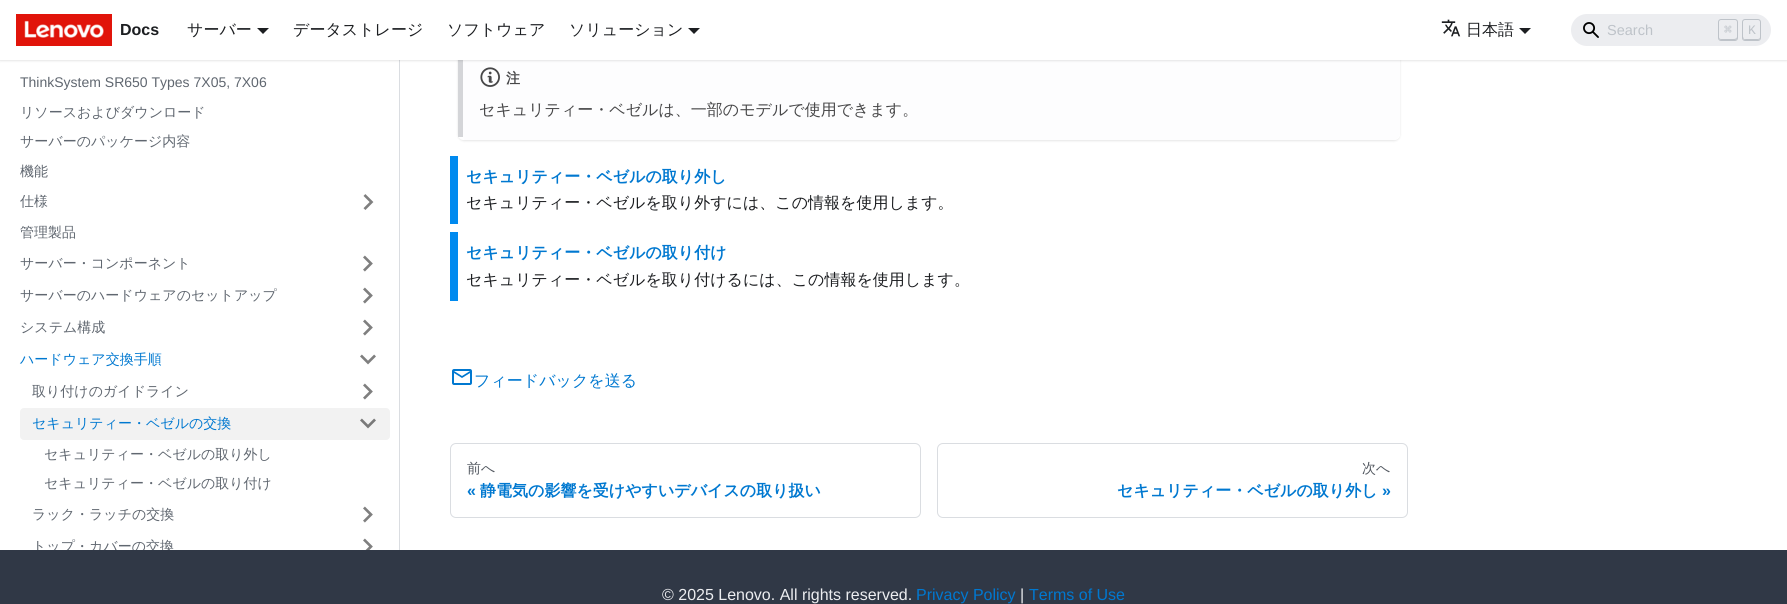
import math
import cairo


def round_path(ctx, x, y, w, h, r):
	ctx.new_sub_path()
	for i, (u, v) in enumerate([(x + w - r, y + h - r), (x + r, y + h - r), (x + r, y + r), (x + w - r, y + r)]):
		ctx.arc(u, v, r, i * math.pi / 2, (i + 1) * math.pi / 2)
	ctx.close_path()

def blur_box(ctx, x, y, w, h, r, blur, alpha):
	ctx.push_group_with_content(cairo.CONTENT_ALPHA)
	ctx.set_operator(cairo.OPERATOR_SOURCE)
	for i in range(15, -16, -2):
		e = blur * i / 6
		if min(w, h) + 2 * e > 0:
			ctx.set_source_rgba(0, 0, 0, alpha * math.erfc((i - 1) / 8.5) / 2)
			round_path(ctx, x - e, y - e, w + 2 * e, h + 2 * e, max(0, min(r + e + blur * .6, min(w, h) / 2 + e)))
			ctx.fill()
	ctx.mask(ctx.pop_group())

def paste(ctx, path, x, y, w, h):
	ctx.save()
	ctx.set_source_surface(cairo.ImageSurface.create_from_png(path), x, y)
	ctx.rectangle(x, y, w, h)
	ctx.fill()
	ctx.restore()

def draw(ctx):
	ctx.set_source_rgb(1, 1, 1)
	ctx.paint()
	ctx.set_source_rgb(0.855, 0.867, 0.882)
	ctx.rectangle(399, 60, 1, 490)
	ctx.fill()
	ctx.save()
	ctx.set_fill_rule(cairo.FILL_RULE_EVEN_ODD)
	ctx.new_path()
	ctx.move_to(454, 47)
	ctx.line_to(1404, 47)
	ctx.line_to(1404, 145)
	ctx.line_to(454, 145)
	ctx.close_path()
	ctx.move_to(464, 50)
	ctx.line_to(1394, 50)
	ctx.curve_to(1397.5, 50, 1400, 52.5, 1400, 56)
	ctx.line_to(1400, 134)
	ctx.curve_to(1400, 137.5, 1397.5, 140, 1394, 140)
	ctx.line_to(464, 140)
	ctx.curve_to(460.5, 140, 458, 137.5, 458, 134)
	ctx.line_to(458, 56)
	ctx.curve_to(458, 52.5, 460.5, 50, 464, 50)
	ctx.close_path()
	ctx.clip()
	ctx.set_source_rgb(0, 0, 0)
	blur_box(ctx, 458, 51, 942, 90, 6, 1, 0.1)
	ctx.restore()
	ctx.set_source_rgb(0.992, 0.992, 0.996)
	ctx.new_path()
	ctx.move_to(464, 50)
	ctx.line_to(1394, 50)
	ctx.curve_to(1397, 50, 1400, 53, 1400, 56)
	ctx.line_to(1400, 134)
	ctx.curve_to(1400, 137, 1397, 140, 1394, 140)
	ctx.line_to(464, 140)
	ctx.curve_to(464, 140, 463, 137, 463, 134)
	ctx.line_to(463, 56)
	ctx.curve_to(463, 53, 464, 50, 464, 50)
	ctx.close_path()
	ctx.fill()
	ctx.set_source_rgb(0.831, 0.835, 0.847)
	ctx.rectangle(458, 53, 5, 84)
	ctx.fill()
	ctx.set_source_rgb(0, 0, 0)
	blur_box(ctx, 0, 1, 1787, 60, 0, 1, 0.1)
	ctx.set_source_rgb(1, 1, 1)
	ctx.rectangle(0, 0, 1787, 60)
	ctx.fill()
	paste(ctx, 'media/1.png', 16, 14, 96, 32)
	ctx.select_font_face('Liberation Sans', cairo.FONT_SLANT_NORMAL, cairo.FONT_WEIGHT_BOLD)
	ctx.set_font_size(16)
	ctx.set_source_rgb(0.11, 0.118, 0.129)
	ctx.move_to(120, 35)
	ctx.show_text('Docs')
	ctx.select_font_face('WenQuanYi Zen Hei Medium')
	ctx.move_to(187, 35)
	ctx.show_text('サーバー')
	ctx.new_path()
	ctx.move_to(257, 28)
	ctx.line_to(269, 28)
	ctx.line_to(263, 34)
	ctx.close_path()
	ctx.fill()
	for x, y, s in [
		(293, 35, 'データストレージ'),
		(447, 35, 'ソフトウェア'),
		(569, 35, 'ソリューション'),
	]:
		ctx.move_to(x, y)
		ctx.show_text(s)
	ctx.new_path()
	ctx.move_to(688, 28)
	ctx.line_to(700, 28)
	ctx.line_to(694, 34)
	ctx.close_path()
	ctx.fill()
	paste(ctx, 'media/2.png', 1441, 19, 20, 18)
	ctx.move_to(1466, 35)
	ctx.show_text('日本語')
	ctx.new_path()
	ctx.move_to(1519, 28)
	ctx.line_to(1531, 28)
	ctx.line_to(1525, 34)
	ctx.close_path()
	ctx.fill()
	ctx.set_source_rgb(0.922, 0.929, 0.941)
	round_path(ctx, 1571, 14, 200, 32, 16)
	ctx.fill()
	paste(ctx, 'media/3.png', 1583, 22, 16, 16)
	ctx.select_font_face('Liberation Sans')
	ctx.set_font_size(14.5)
	ctx.set_source_rgb(0.745, 0.765, 0.788)
	ctx.move_to(1607, 35)
	ctx.show_text('Search')
	ctx.new_path()
	ctx.move_to(1737, 37)
	ctx.curve_to(1736.5, 38.5, 1735.5, 39, 1733, 39)
	ctx.line_to(1721, 39)
	ctx.curve_to(1720, 39, 1719.5, 38.5, 1719, 37.5)
	ctx.curve_to(1719, 40.5, 1721.5, 40, 1723.5, 40)
	ctx.line_to(1732.5, 40)
	ctx.curve_to(1735.5, 40, 1737, 40.5, 1737, 37)
	ctx.close_path()
	ctx.fill()
	round_path(ctx, 1718.5, 19.5, 19, 21, 2.5)
	ctx.set_line_width(1)
	ctx.stroke()
	ctx.select_font_face('DejaVu Sans Mono')
	ctx.set_font_size(13)
	ctx.move_to(1724, 34)
	ctx.show_text('⌘')
	ctx.new_path()
	ctx.move_to(1760, 37)
	ctx.curve_to(1760, 38, 1759, 39, 1758, 39)
	ctx.line_to(1744, 39)
	ctx.line_to(1743, 36.5)
	ctx.curve_to(1743, 40, 1744, 40, 1747, 40)
	ctx.line_to(1756, 40)
	ctx.curve_to(1759, 40, 1760, 40, 1760, 37)
	ctx.close_path()
	ctx.fill()
	round_path(ctx, 1742.5, 19.5, 18, 21, 2.5)
	ctx.stroke()
	ctx.select_font_face('Liberation Mono')
	ctx.move_to(1748, 34)
	ctx.show_text('K')
	ctx.select_font_face('Liberation Sans')
	ctx.set_font_size(14)
	ctx.set_source_rgb(0.376, 0.404, 0.439)
	ctx.move_to(20, 87)
	ctx.show_text('ThinkSystem SR650 Types 7X05, 7X06')
	ctx.select_font_face('WenQuanYi Zen Hei Medium')
	for x, y, s in [
		(20, 117, 'リソースおよびダウンロード'),
		(20, 146, 'サーバーのパッケージ内容'),
		(20, 176, '機能'),
		(20, 206, '仕様'),
	]:
		ctx.move_to(x, y)
		ctx.show_text(s)
	paste(ctx, 'media/4.png', 363, 194, 11, 16)
	ctx.move_to(20, 237)
	ctx.show_text('管理製品')
	ctx.move_to(20, 268)
	ctx.show_text('サーバー・コンポーネント')
	paste(ctx, 'media/5.png', 363, 255, 10, 17)
	ctx.move_to(20, 300)
	ctx.show_text('サーバーのハードウェアのセットアップ')
	paste(ctx, 'media/5.png', 363, 287, 10, 17)
	ctx.move_to(20, 332)
	ctx.show_text('システム構成')
	paste(ctx, 'media/5.png', 363, 319, 10, 17)
	ctx.set_source_rgb(0, 0.471, 0.816)
	ctx.move_to(20, 364)
	ctx.show_text('ハードウェア交換手順')
	paste(ctx, 'media/6.png', 360, 354, 16, 11)
	ctx.set_source_rgb(0.376, 0.404, 0.439)
	ctx.move_to(32, 396)
	ctx.show_text('取り付けのガイドライン')
	paste(ctx, 'media/5.png', 363, 383, 10, 17)
	ctx.set_source_rgb(0.949, 0.949, 0.949)
	round_path(ctx, 20, 408, 370, 32, 4)
	ctx.fill()
	ctx.set_source_rgb(0, 0.471, 0.816)
	ctx.move_to(32, 428)
	ctx.show_text('セキュリティー・ベゼルの交換')
	paste(ctx, 'media/7.png', 360, 418, 16, 11)
	ctx.set_source_rgb(0.376, 0.404, 0.439)
	for x, y, s in [
		(44, 459, 'セキュリティー・ベゼルの取り外し'),
		(44, 488, 'セキュリティー・ベゼルの取り付け'),
		(32, 519, 'ラック・ラッチの交換'),
	]:
		ctx.move_to(x, y)
		ctx.show_text(s)
	paste(ctx, 'media/5.png', 363, 506, 10, 17)
	ctx.save()
	ctx.rectangle(0, 6, 400, 544)
	ctx.clip()
	ctx.move_to(32, 551)
	ctx.show_text('トップ・カバーの交換')
	ctx.restore()
	paste(ctx, 'media/8.png', 363, 538, 10, 12)
	paste(ctx, 'media/9.png', 480, 67, 20, 20)
	ctx.select_font_face('WenQuanYi Zen Hei', cairo.FONT_SLANT_NORMAL, cairo.FONT_WEIGHT_BOLD)
	ctx.set_source_rgb(0.278, 0.278, 0.282)
	ctx.move_to(506, 83)
	ctx.show_text('注')
	ctx.select_font_face('WenQuanYi Zen Hei Medium')
	ctx.set_font_size(16)
	ctx.move_to(479, 115)
	ctx.show_text('セキュリティー・ベゼルは、一部のモデルで使用できます。')
	ctx.set_source_rgb(0, 0.541, 0.937)
	ctx.rectangle(450, 156, 8, 68)
	ctx.fill()
	ctx.select_font_face('WenQuanYi Zen Hei', cairo.FONT_SLANT_NORMAL, cairo.FONT_WEIGHT_BOLD)
	ctx.set_source_rgb(0, 0.471, 0.816)
	ctx.move_to(466, 182)
	ctx.show_text('セキュリティー・ベゼルの取り外し')
	ctx.select_font_face('WenQuanYi Zen Hei Medium')
	ctx.set_source_rgb(0.11, 0.118, 0.129)
	ctx.move_to(466, 208)
	ctx.show_text('セキュリティー・ベゼルを取り外すには、この情報を使用します。')
	ctx.set_source_rgb(0, 0.541, 0.937)
	ctx.rectangle(450, 232, 8, 69)
	ctx.fill()
	ctx.select_font_face('WenQuanYi Zen Hei', cairo.FONT_SLANT_NORMAL, cairo.FONT_WEIGHT_BOLD)
	ctx.set_source_rgb(0, 0.471, 0.816)
	ctx.move_to(466, 258)
	ctx.show_text('セキュリティー・ベゼルの取り付け')
	ctx.select_font_face('WenQuanYi Zen Hei Medium')
	ctx.set_source_rgb(0.11, 0.118, 0.129)
	ctx.move_to(466, 285)
	ctx.show_text('セキュリティー・ベゼルを取り付けるには、この情報を使用します。')
	paste(ctx, 'media/10.png', 452, 369, 20, 16)
	ctx.set_source_rgb(0, 0.471, 0.816)
	ctx.move_to(474, 386)
	ctx.show_text('フィードバックを送る')
	round_path(ctx, 450.5, 443.5, 470, 74, 5.5)
	ctx.set_source_rgb(0.855, 0.867, 0.882)
	ctx.stroke()
	ctx.set_font_size(14)
	ctx.set_source_rgb(0.322, 0.345, 0.376)
	ctx.move_to(467, 473)
	ctx.show_text('前へ')
	ctx.select_font_face('Liberation Sans', cairo.FONT_SLANT_NORMAL, cairo.FONT_WEIGHT_BOLD)
	ctx.set_font_size(16)
	ctx.set_source_rgb(0, 0.471, 0.816)
	ctx.move_to(467, 496)
	ctx.show_text('«')
	ctx.select_font_face('WenQuanYi Zen Hei', cairo.FONT_SLANT_NORMAL, cairo.FONT_WEIGHT_BOLD)
	ctx.move_to(480, 496)
	ctx.show_text('静電気の影響を受けやすいデバイスの取り扱い')
	round_path(ctx, 937.5, 443.5, 470, 74, 5.5)
	ctx.set_source_rgb(0.855, 0.867, 0.882)
	ctx.stroke()
	ctx.select_font_face('WenQuanYi Zen Hei Medium')
	ctx.set_font_size(14)
	ctx.set_source_rgb(0.322, 0.345, 0.376)
	ctx.move_to(1362, 473)
	ctx.show_text('次へ')
	ctx.select_font_face('WenQuanYi Zen Hei', cairo.FONT_SLANT_NORMAL, cairo.FONT_WEIGHT_BOLD)
	ctx.set_font_size(16)
	ctx.set_source_rgb(0, 0.471, 0.816)
	ctx.move_to(1117, 496)
	ctx.show_text('セキュリティー・ベゼルの取り外し')
	ctx.select_font_face('Liberation Sans', cairo.FONT_SLANT_NORMAL, cairo.FONT_WEIGHT_BOLD)
	ctx.move_to(1382, 496)
	ctx.show_text('»')
	ctx.set_source_rgb(0.188, 0.22, 0.275)
	ctx.rectangle(0, 550, 1787, 54)
	ctx.fill()
	ctx.select_font_face('Liberation Sans')
	ctx.set_source_rgb(0.922, 0.929, 0.941)
	ctx.move_to(662, 600)
	ctx.show_text('© 2025 Lenovo. All rights reserved.')
	ctx.set_source_rgb(0, 0.471, 0.816)
	ctx.move_to(916, 600)
	ctx.show_text('Privacy Policy')
	ctx.set_source_rgb(0.922, 0.929, 0.941)
	ctx.move_to(1020, 600)
	ctx.show_text('|')
	ctx.set_source_rgb(0, 0.471, 0.816)
	ctx.move_to(1029, 600)
	ctx.show_text('Terms of Use')


surface = cairo.ImageSurface(cairo.FORMAT_RGB24, 1787, 604)
ctx = cairo.Context(surface)
options = cairo.FontOptions()
options.set_hint_metrics(cairo.HINT_METRICS_OFF)
options.set_hint_style(cairo.HINT_STYLE_NONE)
ctx.set_font_options(options)
ctx.set_miter_limit(4)
draw(ctx)
surface.write_to_png('image.png')
